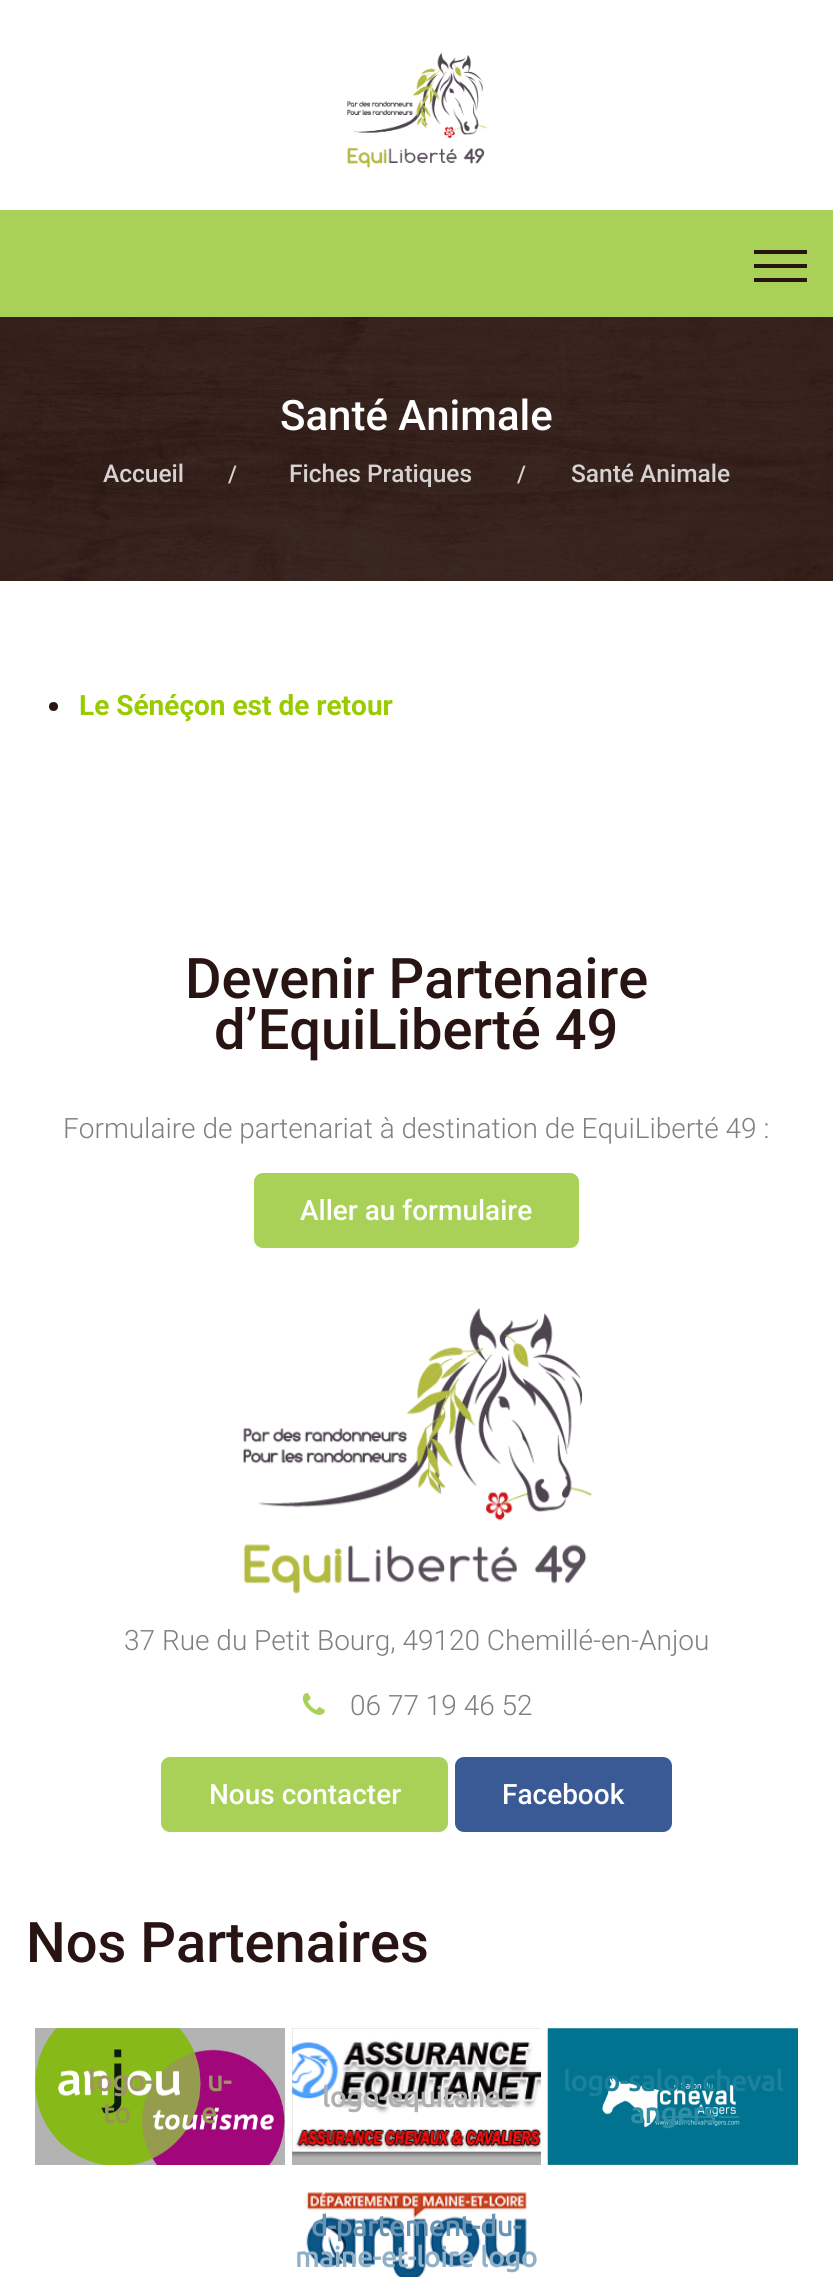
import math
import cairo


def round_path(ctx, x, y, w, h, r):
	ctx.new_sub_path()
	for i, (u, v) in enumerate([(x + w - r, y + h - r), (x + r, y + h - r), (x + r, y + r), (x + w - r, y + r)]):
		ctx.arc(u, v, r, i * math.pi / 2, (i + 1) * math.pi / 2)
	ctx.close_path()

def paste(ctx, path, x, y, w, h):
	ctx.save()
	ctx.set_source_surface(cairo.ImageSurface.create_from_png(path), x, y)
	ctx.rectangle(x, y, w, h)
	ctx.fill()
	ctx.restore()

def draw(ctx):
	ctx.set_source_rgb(1, 1, 1)
	ctx.paint()
	paste(ctx, 'media/1.png', 347, 52, 140, 116)
	ctx.set_source_rgb(0.663, 0.82, 0.345)
	ctx.rectangle(0, 210, 833, 107)
	ctx.fill()
	ctx.set_source_rgb(0.153, 0.082, 0.078)
	ctx.rectangle(754, 264, 53, 4)
	ctx.rectangle(754, 250, 53, 4)
	ctx.rectangle(754, 278, 53, 4)
	ctx.fill()
	paste(ctx, 'media/2.png', 0, 317, 833, 264)
	ctx.select_font_face('Roboto Medium')
	ctx.set_font_size(42)
	ctx.set_source_rgb(1, 1, 1)
	ctx.move_to(280, 430)
	ctx.show_text('Santé Animale')
	ctx.set_font_size(24.5)
	ctx.set_source_rgb(0.839, 0.824, 0.82)
	ctx.move_to(103, 482)
	ctx.show_text('Accueil')
	ctx.set_font_size(23)
	ctx.move_to(228, 482)
	ctx.show_text('/')
	ctx.set_font_size(24.5)
	ctx.move_to(289, 482)
	ctx.show_text('Fiches Pratiques')
	ctx.set_font_size(23)
	ctx.move_to(517, 482)
	ctx.show_text('/')
	ctx.set_font_size(24.5)
	ctx.move_to(571, 482)
	ctx.show_text('Santé Animale')
	ctx.set_source_rgb(0.153, 0.082, 0.078)
	ctx.new_path()
	ctx.arc(53.5, 706.5, 4.5, 0, 2 * math.pi)
	ctx.fill()
	ctx.select_font_face('Roboto', cairo.FONT_SLANT_NORMAL, cairo.FONT_WEIGHT_BOLD)
	ctx.set_font_size(28)
	ctx.set_source_rgb(0.6, 0.8, 0)
	ctx.move_to(79, 715)
	ctx.show_text('Le Sénéçon est de retour')
	ctx.select_font_face('Roboto Medium')
	ctx.set_font_size(56)
	ctx.set_source_rgb(0.153, 0.082, 0.078)
	ctx.move_to(185, 998)
	ctx.show_text('Devenir Partenaire')
	ctx.move_to(214, 1049)
	ctx.show_text('d’EquiLiberté 49')
	ctx.select_font_face('Roboto Light')
	ctx.set_font_size(28)
	ctx.set_source_rgb(0.498, 0.498, 0.498)
	ctx.move_to(63, 1138)
	ctx.show_text('Formulaire de partenariat à destination de EquiLiberté 49 :')
	ctx.set_source_rgb(0.663, 0.82, 0.345)
	round_path(ctx, 256, 1175, 321, 71, 7)
	ctx.fill_preserve()
	ctx.set_line_width(4)
	ctx.stroke()
	ctx.select_font_face('Roboto Medium')
	ctx.set_source_rgb(1, 1, 1)
	ctx.move_to(300, 1220)
	ctx.show_text('Aller au formulaire')
	paste(ctx, 'media/3.png', 243, 1308, 349, 286)
	ctx.select_font_face('Roboto Light')
	ctx.set_source_rgb(0.498, 0.498, 0.498)
	ctx.move_to(124, 1650)
	ctx.show_text('37 Rue du Petit Bourg, 49120 Chemillé-en-Anjou')
	paste(ctx, 'media/4.png', 302, 1693, 23, 22)
	ctx.move_to(350, 1715)
	ctx.show_text('06 77 19 46 52')
	ctx.set_source_rgb(0.663, 0.82, 0.345)
	round_path(ctx, 163, 1759, 283, 71, 7)
	ctx.fill_preserve()
	ctx.stroke()
	ctx.select_font_face('Roboto Medium')
	ctx.set_source_rgb(1, 1, 1)
	ctx.move_to(209, 1804)
	ctx.show_text('Nous contacter')
	ctx.set_source_rgb(0.227, 0.353, 0.584)
	round_path(ctx, 457, 1759, 213, 71, 7)
	ctx.fill_preserve()
	ctx.stroke()
	ctx.set_source_rgb(1, 1, 1)
	ctx.move_to(502, 1804)
	ctx.show_text('Facebook')
	ctx.set_font_size(56)
	ctx.set_source_rgb(0.153, 0.082, 0.078)
	ctx.move_to(26, 1962)
	ctx.show_text('Nos Partenaires')
	ctx.set_source_rgb(0.702, 0.702, 0.702)
	ctx.rectangle(35, 2028, 250, 137)
	ctx.fill()
	paste(ctx, 'media/5.png', 35, 2028, 250, 137)
	ctx.select_font_face('Ubuntu', cairo.FONT_SLANT_NORMAL, cairo.FONT_WEIGHT_BOLD)
	ctx.set_font_size(28)
	ctx.set_source_rgb(0.627, 0.576, 0.408)
	ctx.move_to(88, 2091)
	ctx.show_text('logo-')
	ctx.move_to(207, 2091)
	ctx.show_text('u-')
	ctx.set_source_rgb(0.596, 0.584, 0.329)
	ctx.move_to(103, 2123)
	ctx.show_text('to')
	ctx.move_to(201, 2123)
	ctx.show_text('e')
	ctx.set_source_rgb(0.702, 0.702, 0.702)
	ctx.rectangle(292, 2028, 249, 137)
	ctx.fill()
	paste(ctx, 'media/6.png', 292, 2028, 249, 130)
	ctx.set_source_rgb(0.686, 0.686, 0.69)
	ctx.move_to(322, 2107)
	ctx.show_text('logo-equitanet')
	paste(ctx, 'media/7.png', 547, 2028, 251, 137)
	ctx.set_source_rgb(0.11, 0.51, 0.612)
	ctx.move_to(563, 2091)
	ctx.show_text('logo-salon cheval')
	ctx.set_source_rgb(0.2, 0.561, 0.651)
	ctx.move_to(630, 2123)
	ctx.show_text('angers')
	paste(ctx, 'media/8.png', 292, 2172, 249, 105)
	ctx.set_source_rgb(0.412, 0.58, 0.698)
	ctx.move_to(311, 2236)
	ctx.show_text('d-partement-du-')
	ctx.set_source_rgb(0.565, 0.69, 0.78)
	ctx.move_to(295, 2267)
	ctx.show_text('maine-et-loire logo')


surface = cairo.ImageSurface(cairo.FORMAT_RGB24, 833, 2277)
ctx = cairo.Context(surface)
options = cairo.FontOptions()
options.set_hint_metrics(cairo.HINT_METRICS_OFF)
options.set_hint_style(cairo.HINT_STYLE_NONE)
ctx.set_font_options(options)
ctx.set_miter_limit(4)
draw(ctx)
surface.write_to_png('image.png')
